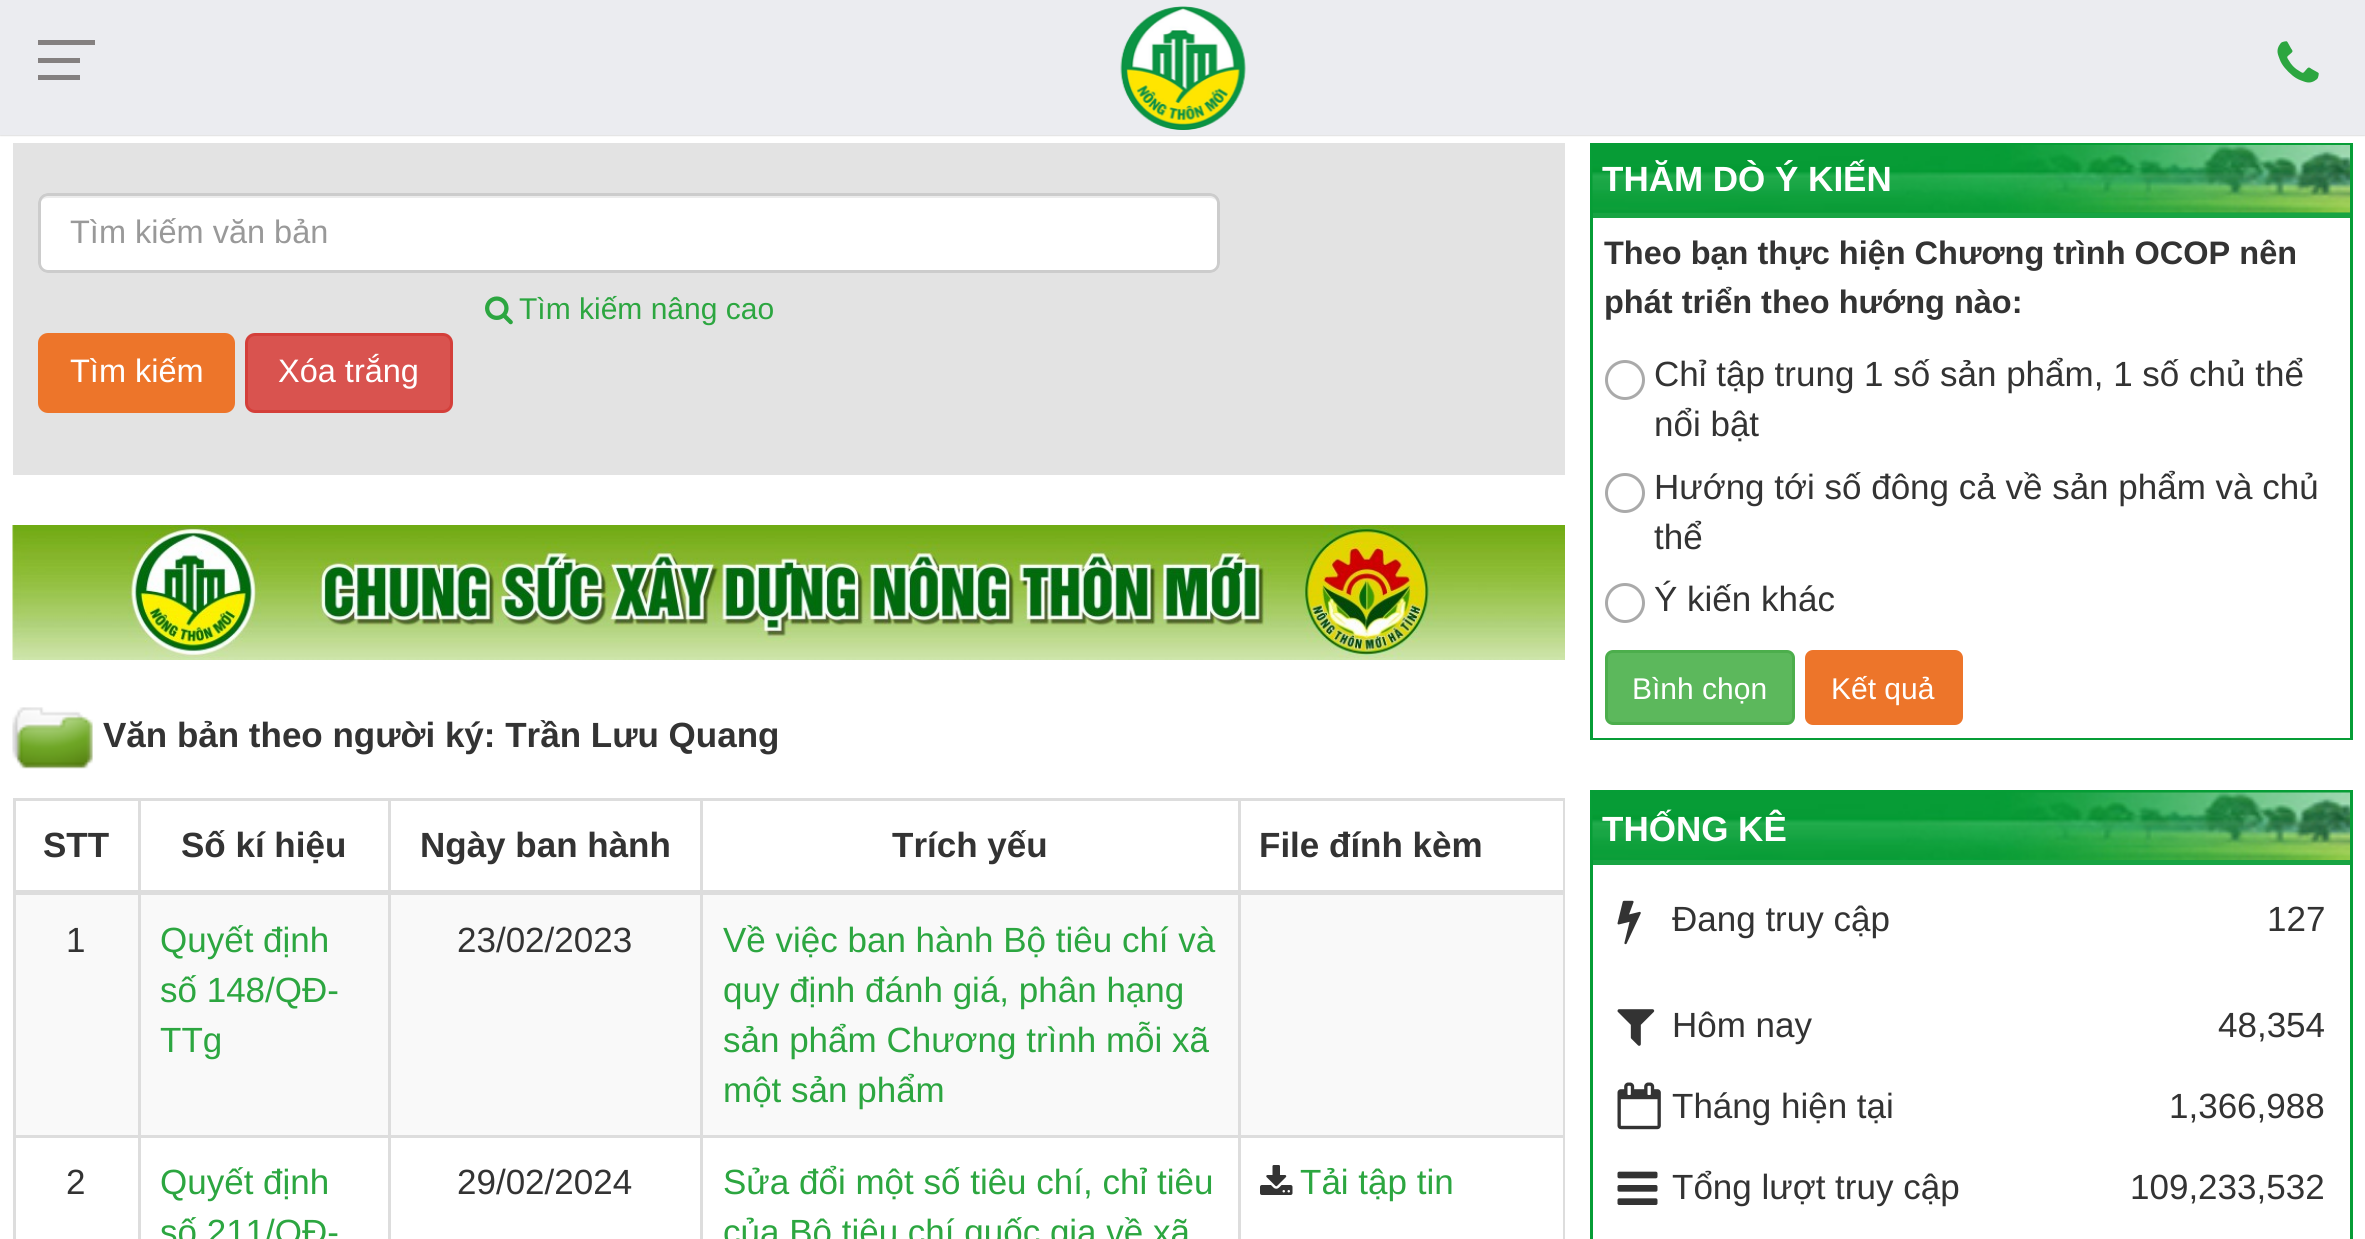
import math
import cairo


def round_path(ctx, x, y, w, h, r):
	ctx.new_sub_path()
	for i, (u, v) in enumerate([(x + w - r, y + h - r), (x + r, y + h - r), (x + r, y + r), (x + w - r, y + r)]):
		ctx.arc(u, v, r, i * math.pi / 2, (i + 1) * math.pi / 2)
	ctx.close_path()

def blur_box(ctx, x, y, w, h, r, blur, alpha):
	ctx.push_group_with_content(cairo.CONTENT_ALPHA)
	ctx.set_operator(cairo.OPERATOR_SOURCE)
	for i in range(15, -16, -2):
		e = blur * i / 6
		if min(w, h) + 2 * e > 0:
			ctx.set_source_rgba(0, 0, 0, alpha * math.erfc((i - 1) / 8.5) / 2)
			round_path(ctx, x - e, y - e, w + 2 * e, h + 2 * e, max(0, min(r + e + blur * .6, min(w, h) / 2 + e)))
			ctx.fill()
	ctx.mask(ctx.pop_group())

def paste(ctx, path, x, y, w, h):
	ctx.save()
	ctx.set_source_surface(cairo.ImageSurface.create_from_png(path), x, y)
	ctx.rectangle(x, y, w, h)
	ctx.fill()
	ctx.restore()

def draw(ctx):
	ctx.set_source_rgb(1, 1, 1)
	ctx.paint()
	ctx.set_source_rgb(0, 0, 0)
	blur_box(ctx, 0, 0, 2365, 135, 0, 1, 0.3)
	ctx.set_source_rgb(0.918, 0.925, 0.941)
	ctx.rectangle(0, 0, 2365, 135)
	ctx.fill()
	ctx.set_source_rgb(0.518, 0.502, 0.502)
	ctx.rectangle(38, 58, 42, 5)
	ctx.rectangle(38, 40, 57, 5)
	ctx.rectangle(38, 75, 42, 5)
	ctx.fill()
	paste(ctx, 'media/1.png', 1120, 6, 126, 124)
	paste(ctx, 'media/2.png', 2277, 41, 42, 42)
	ctx.set_source_rgb(0.89, 0.89, 0.89)
	ctx.rectangle(13, 143, 1552, 332)
	ctx.fill()
	ctx.set_source_rgb(1, 1, 1)
	round_path(ctx, 38, 193, 1182, 80, 10)
	ctx.fill()
	ctx.set_source_rgb(0.925, 0.925, 0.925)
	ctx.new_path()
	ctx.move_to(48, 198)
	ctx.line_to(1210, 198)
	ctx.curve_to(1214, 198, 1218, 201, 1218, 205)
	ctx.line_to(1218, 203)
	ctx.curve_to(1218, 199, 1214, 195, 1210, 195)
	ctx.line_to(48, 195)
	ctx.curve_to(44, 195, 40, 199, 40, 203)
	ctx.line_to(40, 205)
	ctx.curve_to(40, 201, 43, 198, 48, 198)
	ctx.close_path()
	ctx.fill()
	round_path(ctx, 39.5, 194.5, 1179, 77, 8.5)
	ctx.set_source_rgb(0.8, 0.8, 0.8)
	ctx.set_line_width(3)
	ctx.stroke()
	ctx.select_font_face('Liberation Sans')
	ctx.set_font_size(32.5)
	ctx.set_source_rgb(0.6, 0.6, 0.6)
	ctx.move_to(70, 243)
	ctx.show_text('Tìm kiếm văn bản')
	paste(ctx, 'media/3.png', 485, 296, 28, 29)
	ctx.set_font_size(30)
	ctx.set_source_rgb(0.173, 0.651, 0.251)
	ctx.move_to(519, 319)
	ctx.show_text('Tìm kiếm nâng cao')
	ctx.set_source_rgb(0.929, 0.459, 0.165)
	round_path(ctx, 39.5, 334.5, 194, 77, 8.5)
	ctx.fill_preserve()
	ctx.stroke()
	ctx.set_font_size(32.5)
	ctx.set_source_rgb(1, 1, 1)
	ctx.move_to(70, 382)
	ctx.show_text('Tìm kiếm')
	ctx.set_source_rgb(0.851, 0.325, 0.31)
	round_path(ctx, 246.5, 334.5, 205, 77, 8.5)
	ctx.fill_preserve()
	ctx.set_source_rgb(0.831, 0.247, 0.227)
	ctx.stroke()
	ctx.set_source_rgb(1, 1, 1)
	ctx.move_to(278, 382)
	ctx.show_text('Xóa trắng')
	paste(ctx, 'media/4.png', 12, 525, 1553, 135)
	paste(ctx, 'media/5.png', 12, 707, 81, 62)
	ctx.select_font_face('Liberation Sans', cairo.FONT_SLANT_NORMAL, cairo.FONT_WEIGHT_BOLD)
	ctx.set_font_size(35)
	ctx.set_source_rgb(0.2, 0.2, 0.2)
	ctx.move_to(103, 747)
	ctx.show_text('Văn bản theo người ký: Trần Lưu Quang')
	ctx.set_source_rgb(0.867, 0.867, 0.867)
	ctx.rectangle(13, 798, 1552, 3)
	ctx.rectangle(1563, 798, 2, 441)
	ctx.rectangle(13, 798, 3, 441)
	ctx.fill()
	ctx.set_source_rgb(0.2, 0.2, 0.2)
	for x, y, s in [
		(43, 857, 'STT'),
		(181, 857, 'Số kí hiệu'),
		(420, 857, 'Ngày ban hành'),
		(892, 857, 'Trích yếu'),
	]:
		ctx.move_to(x, y)
		ctx.show_text(s)
	ctx.set_source_rgb(0.976, 0.976, 0.976)
	ctx.rectangle(16, 895, 1547, 240)
	ctx.fill()
	ctx.set_source_rgb(0.867, 0.867, 0.867)
	ctx.rectangle(1238, 1135, 327, 3)
	ctx.rectangle(1238, 1135, 3, 104)
	ctx.rectangle(700, 1135, 540, 3)
	ctx.rectangle(700, 1135, 3, 104)
	ctx.rectangle(388, 1135, 315, 3)
	ctx.rectangle(388, 1135, 3, 104)
	ctx.rectangle(138, 1135, 252, 3)
	ctx.rectangle(138, 1135, 3, 104)
	ctx.rectangle(13, 1135, 127, 3)
	ctx.rectangle(138, 798, 3, 340)
	ctx.rectangle(388, 798, 3, 340)
	ctx.rectangle(700, 798, 3, 340)
	ctx.rectangle(1238, 798, 3, 340)
	ctx.rectangle(13, 890, 1552, 5)
	ctx.fill()
	ctx.set_source_rgb(0.2, 0.2, 0.2)
	ctx.move_to(1259, 857)
	ctx.show_text('File đính kèm')
	ctx.select_font_face('Liberation Sans')
	ctx.move_to(66, 952)
	ctx.show_text('1')
	ctx.set_source_rgb(0.173, 0.651, 0.251)
	for x, y, s in [
		(160, 952, 'Quyết định'),
		(160, 1002, 'số 148/QĐ-'),
		(160, 1052, 'TTg'),
	]:
		ctx.move_to(x, y)
		ctx.show_text(s)
	ctx.set_source_rgb(0.2, 0.2, 0.2)
	ctx.move_to(457, 952)
	ctx.show_text('23/02/2023')
	ctx.set_source_rgb(0.173, 0.651, 0.251)
	for x, y, s in [
		(723, 952, 'Về việc ban hành Bộ tiêu chí và'),
		(723, 1002, 'quy định đánh giá, phân hạng'),
		(723, 1052, 'sản phẩm Chương trình mỗi xã'),
		(723, 1102, 'một sản phẩm'),
	]:
		ctx.move_to(x, y)
		ctx.show_text(s)
	ctx.set_source_rgb(0.2, 0.2, 0.2)
	ctx.move_to(66, 1194)
	ctx.show_text('2')
	ctx.set_source_rgb(0.173, 0.651, 0.251)
	ctx.move_to(160, 1194)
	ctx.show_text('Quyết định')
	ctx.move_to(160, 1244)
	ctx.show_text('số 211/QĐ-')
	ctx.set_source_rgb(0.2, 0.2, 0.2)
	ctx.move_to(457, 1194)
	ctx.show_text('29/02/2024')
	ctx.set_source_rgb(0.173, 0.651, 0.251)
	ctx.move_to(723, 1194)
	ctx.show_text('Sửa đổi một số tiêu chí, chỉ tiêu')
	ctx.move_to(723, 1244)
	ctx.show_text('của Bộ tiêu chí quốc gia về xã')
	paste(ctx, 'media/6.png', 1260, 1165, 33, 30)
	ctx.move_to(1300, 1194)
	ctx.show_text('Tải tập tin')
	ctx.rectangle(1591.5, 144.5, 760, 594)
	ctx.set_source_rgb(0.024, 0.616, 0.212)
	ctx.stroke()
	ctx.set_source_rgb(0.055, 0.627, 0.231)
	ctx.rectangle(1593, 212, 757, 1)
	ctx.fill()
	paste(ctx, 'media/7.png', 1592, 145, 758, 68)
	ctx.set_source_rgb(0.094, 0.643, 0.263)
	ctx.rectangle(1593, 213, 757, 5)
	ctx.fill()
	ctx.select_font_face('Liberation Sans', cairo.FONT_SLANT_NORMAL, cairo.FONT_WEIGHT_BOLD)
	ctx.set_source_rgb(1, 1, 1)
	ctx.move_to(1602, 191)
	ctx.show_text('THĂM DÒ Ý KIẾN')
	ctx.rectangle(1593, 737, 757, 1)
	ctx.fill()
	ctx.set_font_size(32.5)
	ctx.set_source_rgb(0.2, 0.2, 0.2)
	ctx.move_to(1604, 264)
	ctx.show_text('Theo bạn thực hiện Chương trình OCOP nên')
	ctx.move_to(1604, 313)
	ctx.show_text('phát triển theo hướng nào:')
	ctx.new_path()
	ctx.arc(1625, 380, 18.5, 0, 2 * math.pi)
	ctx.set_source_rgb(0.667, 0.667, 0.667)
	ctx.stroke()
	ctx.select_font_face('Liberation Sans')
	ctx.set_font_size(35)
	ctx.set_source_rgb(0.2, 0.2, 0.2)
	ctx.move_to(1654, 386)
	ctx.show_text('Chỉ tập trung 1 số sản phẩm, 1 số chủ thể')
	ctx.move_to(1654, 436)
	ctx.show_text('nổi bật')
	ctx.new_path()
	ctx.arc(1625, 493, 18.5, 0, 2 * math.pi)
	ctx.set_source_rgb(0.667, 0.667, 0.667)
	ctx.stroke()
	ctx.set_source_rgb(0.2, 0.2, 0.2)
	ctx.move_to(1654, 499)
	ctx.show_text('Hướng tới số đông cả về sản phẩm và chủ')
	ctx.move_to(1654, 549)
	ctx.show_text('thể')
	ctx.new_path()
	ctx.arc(1625, 603, 18.5, 0, 2 * math.pi)
	ctx.set_source_rgb(0.667, 0.667, 0.667)
	ctx.stroke()
	ctx.set_source_rgb(0.2, 0.2, 0.2)
	ctx.move_to(1654, 611)
	ctx.show_text('Ý kiến khác')
	ctx.set_source_rgb(0.361, 0.722, 0.361)
	round_path(ctx, 1606.5, 651.5, 187, 72, 6.5)
	ctx.fill_preserve()
	ctx.set_source_rgb(0.298, 0.682, 0.298)
	ctx.stroke()
	ctx.set_font_size(30)
	ctx.set_source_rgb(1, 1, 1)
	ctx.move_to(1632, 699)
	ctx.show_text('Bình chọn')
	ctx.set_source_rgb(0.929, 0.459, 0.165)
	round_path(ctx, 1806.5, 651.5, 155, 72, 6.5)
	ctx.fill_preserve()
	ctx.stroke()
	ctx.set_source_rgb(1, 1, 1)
	ctx.move_to(1831, 699)
	ctx.show_text('Kết quả')
	ctx.rectangle(1591.5, 791.5, 760, 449)
	ctx.set_source_rgb(0.024, 0.616, 0.212)
	ctx.stroke()
	paste(ctx, 'media/8.png', 1592, 792, 758, 68)
	ctx.set_source_rgb(0.094, 0.643, 0.263)
	ctx.rectangle(1593, 860, 757, 5)
	ctx.fill()
	ctx.select_font_face('Liberation Sans', cairo.FONT_SLANT_NORMAL, cairo.FONT_WEIGHT_BOLD)
	ctx.set_font_size(35)
	ctx.set_source_rgb(1, 1, 1)
	ctx.move_to(1602, 841)
	ctx.show_text('THỐNG KÊ')
	paste(ctx, 'media/9.png', 1617, 900, 24, 45)
	ctx.select_font_face('Liberation Sans')
	ctx.set_source_rgb(0.2, 0.2, 0.2)
	ctx.move_to(1672, 931)
	ctx.show_text('Đang truy cập')
	ctx.move_to(2267, 931)
	ctx.show_text('127')
	paste(ctx, 'media/10.png', 1617, 1009, 38, 37)
	ctx.move_to(1672, 1037)
	ctx.show_text('Hôm nay')
	ctx.move_to(2218, 1037)
	ctx.show_text('48,354')
	paste(ctx, 'media/11.png', 1617, 1082, 44, 48)
	ctx.move_to(1672, 1118)
	ctx.show_text('Tháng hiện tại')
	ctx.move_to(2169, 1118)
	ctx.show_text('1,366,988')
	paste(ctx, 'media/12.png', 1617, 1171, 41, 34)
	ctx.move_to(1672, 1199)
	ctx.show_text('Tổng lượt truy cập')
	ctx.move_to(2130, 1199)
	ctx.show_text('109,233,532')


surface = cairo.ImageSurface(cairo.FORMAT_RGB24, 2365, 1239)
ctx = cairo.Context(surface)
options = cairo.FontOptions()
options.set_hint_metrics(cairo.HINT_METRICS_OFF)
options.set_hint_style(cairo.HINT_STYLE_NONE)
ctx.set_font_options(options)
ctx.set_miter_limit(4)
draw(ctx)
surface.write_to_png('image.png')
